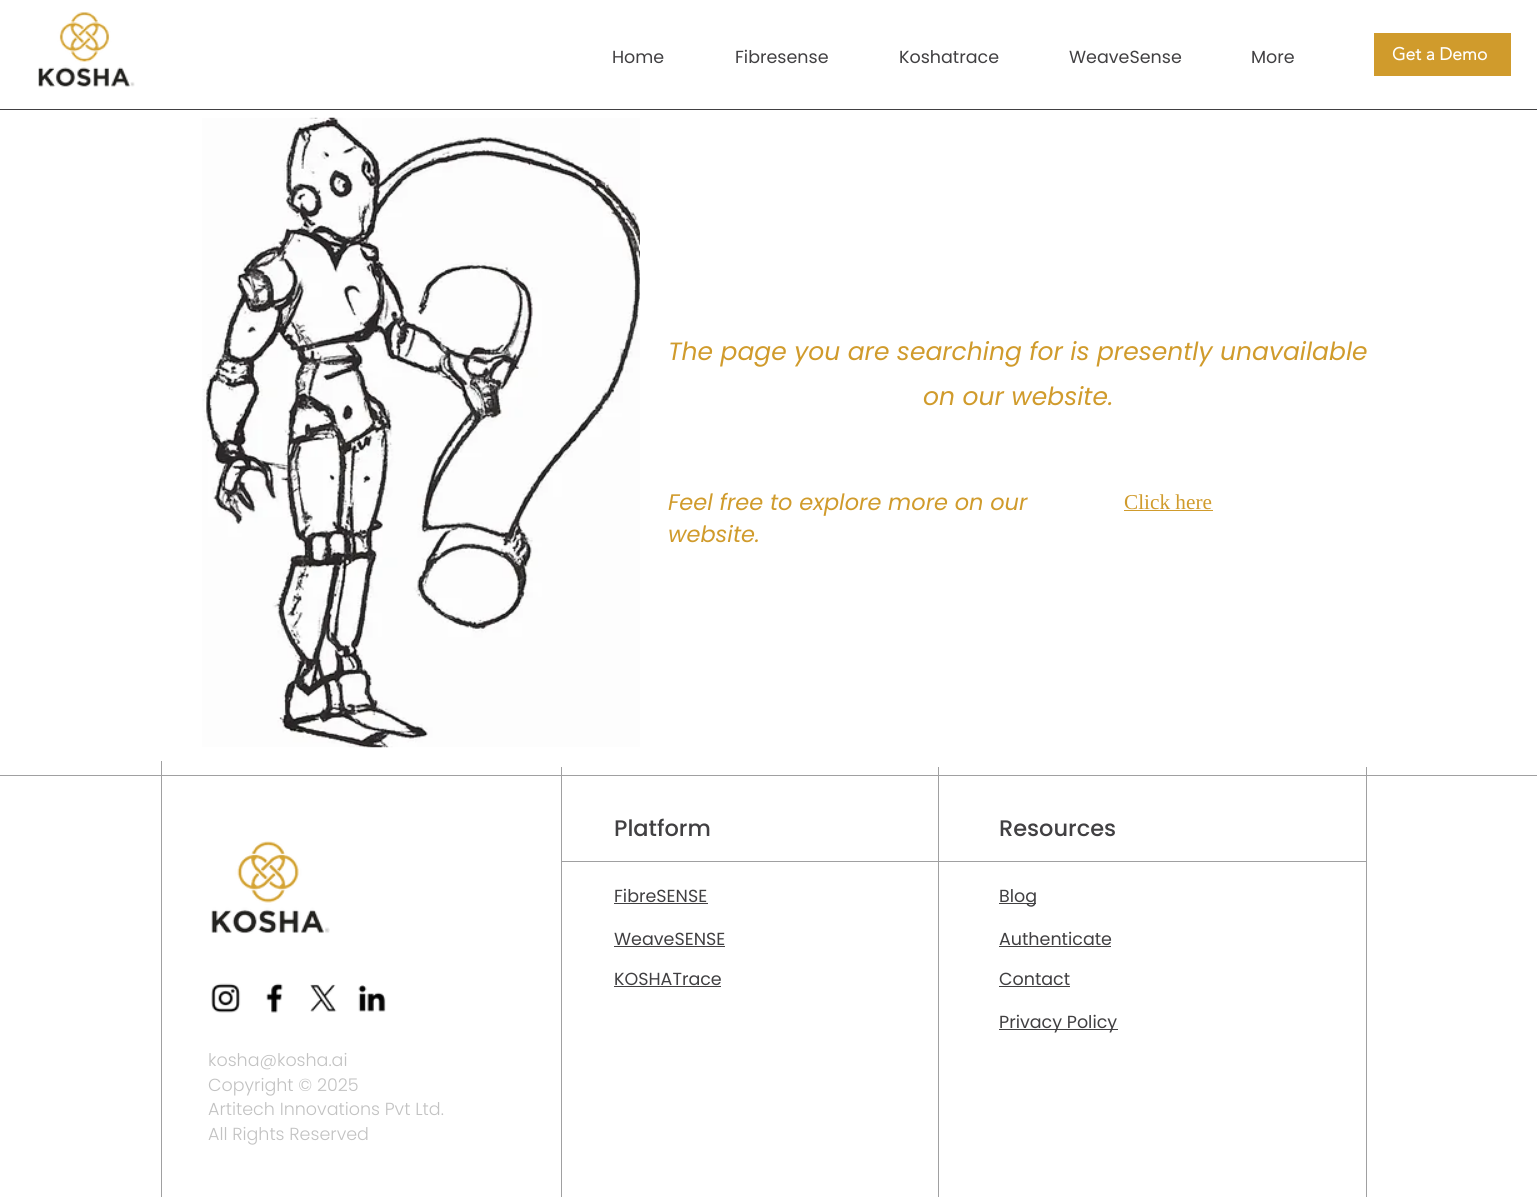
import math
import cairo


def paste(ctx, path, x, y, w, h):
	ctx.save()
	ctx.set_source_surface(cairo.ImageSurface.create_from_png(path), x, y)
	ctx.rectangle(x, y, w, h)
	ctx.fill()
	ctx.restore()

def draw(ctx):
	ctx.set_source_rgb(1, 1, 1)
	ctx.paint()
	paste(ctx, 'media/1.png', 38, 12, 97, 75)
	ctx.select_font_face('Poppins')
	ctx.set_font_size(17.5)
	ctx.set_source_rgb(0.255, 0.251, 0.259)
	for x, y, s in [
		(612, 63, 'Home'),
		(735, 63, 'Fibresense'),
		(899, 63, 'Koshatrace'),
		(1069, 63, 'WeaveSense'),
		(1251, 63, 'More'),
	]:
		ctx.move_to(x, y)
		ctx.show_text(s)
	ctx.set_source_rgb(0.816, 0.608, 0.173)
	ctx.rectangle(1374, 33, 137, 43)
	ctx.fill()
	ctx.select_font_face('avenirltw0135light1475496', cairo.FONT_SLANT_NORMAL, cairo.FONT_WEIGHT_BOLD)
	ctx.set_source_rgb(1, 1, 1)
	ctx.move_to(1392, 60)
	ctx.show_text('Get a Demo')
	ctx.set_source_rgb(0.255, 0.251, 0.259)
	ctx.rectangle(0, 109, 1537, 1)
	ctx.fill()
	paste(ctx, 'media/2.png', 202, 117, 438, 631)
	ctx.select_font_face('Poppins', cairo.FONT_SLANT_ITALIC)
	ctx.set_font_size(25)
	ctx.set_source_rgb(0.816, 0.608, 0.173)
	ctx.move_to(668, 360)
	ctx.show_text('The page you are searching for is presently unavailable')
	ctx.move_to(923, 405)
	ctx.show_text('on our website.')
	ctx.set_font_size(22.5)
	ctx.move_to(668, 510)
	ctx.show_text('Feel free to explore more on our')
	ctx.move_to(668, 542)
	ctx.show_text('website.')
	ctx.select_font_face('Liberation Serif')
	ctx.set_font_size(21.25)
	ctx.move_to(1124, 509)
	ctx.show_text('Click here')
	ctx.rectangle(1124, 510, 89, 1)
	ctx.fill()
	ctx.set_source_rgb(0.627, 0.627, 0.631)
	ctx.rectangle(0, 775, 1537, 1)
	ctx.rectangle(161, 761, 1, 436)
	ctx.rectangle(561, 861, 805, 1)
	ctx.rectangle(561, 767, 1, 430)
	ctx.fill()
	ctx.select_font_face('Poppins Medium')
	ctx.set_font_size(22.5)
	ctx.set_source_rgb(0.255, 0.251, 0.259)
	ctx.move_to(614, 836)
	ctx.show_text('Platform')
	ctx.set_source_rgb(0.627, 0.627, 0.631)
	ctx.rectangle(938, 767, 1, 430)
	ctx.fill()
	ctx.set_source_rgb(0.255, 0.251, 0.259)
	ctx.move_to(999, 836)
	ctx.show_text('Resources')
	ctx.set_source_rgb(0.627, 0.627, 0.631)
	ctx.rectangle(1366, 767, 1, 430)
	ctx.fill()
	paste(ctx, 'media/3.png', 211, 841, 119, 93)
	ctx.select_font_face('Poppins')
	ctx.set_font_size(17.5)
	ctx.set_source_rgb(0.255, 0.251, 0.259)
	ctx.move_to(614, 902)
	ctx.show_text('FibreSENSE')
	ctx.rectangle(614, 903, 94, 1)
	ctx.fill()
	ctx.rectangle(999, 903, 37, 1)
	ctx.fill()
	ctx.move_to(999, 902)
	ctx.show_text('Blog')
	ctx.move_to(614, 945)
	ctx.show_text('WeaveSENSE')
	ctx.rectangle(614, 946, 111, 1)
	ctx.fill()
	ctx.move_to(999, 945)
	ctx.show_text('Authenticate')
	ctx.rectangle(999, 946, 112, 1)
	ctx.fill()
	ctx.move_to(614, 985)
	ctx.show_text('KOSHATrace')
	ctx.rectangle(614, 986, 107, 1)
	ctx.fill()
	ctx.move_to(999, 985)
	ctx.show_text('Contact')
	ctx.rectangle(999, 986, 71, 1)
	ctx.fill()
	paste(ctx, 'media/4.png', 211, 983, 30, 30)
	paste(ctx, 'media/5.png', 266, 983, 17, 30)
	paste(ctx, 'media/6.png', 310, 984, 27, 28)
	paste(ctx, 'media/7.png', 358, 985, 28, 27)
	ctx.rectangle(999, 1029, 119, 1)
	ctx.fill()
	ctx.move_to(999, 1028)
	ctx.show_text('Privacy Policy')
	ctx.select_font_face('Poppins Light')
	ctx.set_source_rgb(0.761, 0.761, 0.761)
	for x, y, s in [
		(208, 1066, 'kosha@kosha.ai'),
		(208, 1091, 'Copyright © 2025'),
		(208, 1115, 'Artitech Innovations Pvt Ltd.'),
		(208, 1140, 'All Rights Reserved'),
	]:
		ctx.move_to(x, y)
		ctx.show_text(s)


surface = cairo.ImageSurface(cairo.FORMAT_RGB24, 1537, 1197)
ctx = cairo.Context(surface)
options = cairo.FontOptions()
options.set_hint_metrics(cairo.HINT_METRICS_OFF)
options.set_hint_style(cairo.HINT_STYLE_NONE)
ctx.set_font_options(options)
ctx.set_miter_limit(4)
draw(ctx)
surface.write_to_png('image.png')
